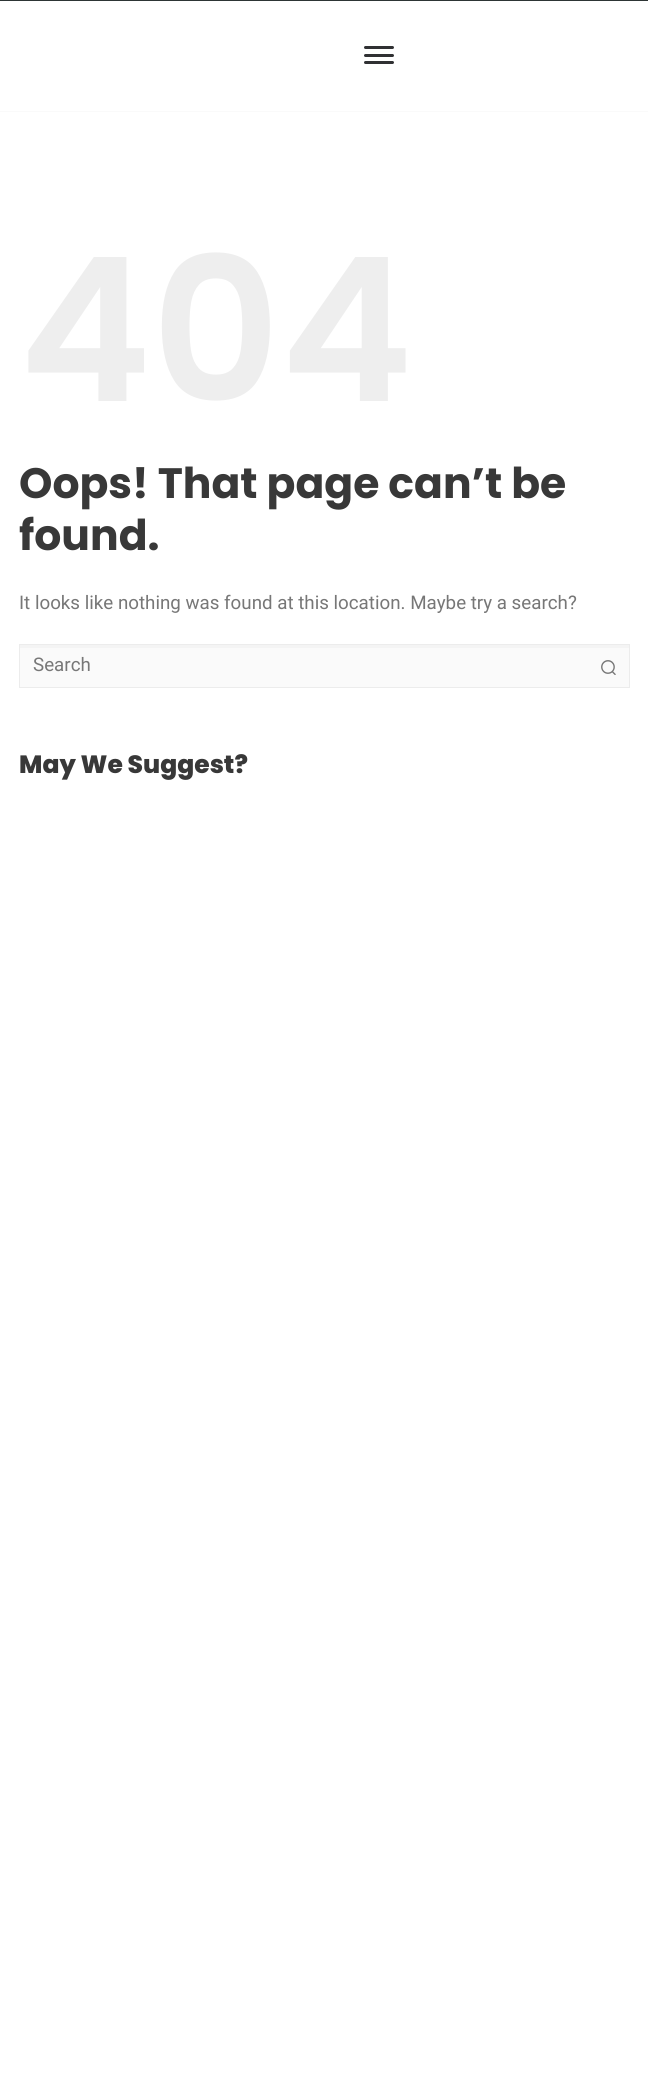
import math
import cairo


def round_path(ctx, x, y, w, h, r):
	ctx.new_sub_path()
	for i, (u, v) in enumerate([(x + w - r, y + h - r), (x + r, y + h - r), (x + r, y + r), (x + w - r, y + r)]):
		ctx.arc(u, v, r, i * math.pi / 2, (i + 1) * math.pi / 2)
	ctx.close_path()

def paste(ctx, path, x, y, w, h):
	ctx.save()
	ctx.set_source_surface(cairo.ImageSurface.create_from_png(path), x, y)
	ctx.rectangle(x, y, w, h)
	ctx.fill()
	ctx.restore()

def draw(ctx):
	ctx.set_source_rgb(1, 1, 1)
	ctx.paint()
	ctx.set_source_rgb(0.176, 0.208, 0.208)
	ctx.rectangle(0, 0, 648, 1)
	ctx.fill()
	ctx.set_source_rgb(0.98, 0.98, 0.98)
	ctx.rectangle(0, 111, 648, 1)
	ctx.fill()
	ctx.set_source_rgb(0.188, 0.192, 0.2)
	round_path(ctx, 364, 46, 30, 3, 1.5)
	ctx.fill()
	round_path(ctx, 364, 54, 30, 3, 1.5)
	ctx.fill()
	round_path(ctx, 364, 61, 30, 3, 1.5)
	ctx.fill()
	ctx.select_font_face('Poppins SemiBold')
	ctx.set_font_size(200)
	ctx.set_source_rgb(0.933, 0.933, 0.933)
	ctx.move_to(19, 401)
	ctx.show_text('404')
	ctx.select_font_face('Poppins', cairo.FONT_SLANT_NORMAL, cairo.FONT_WEIGHT_BOLD)
	ctx.set_font_size(42.5)
	ctx.set_source_rgb(0.22, 0.22, 0.22)
	ctx.move_to(19, 498)
	ctx.show_text('Oops! That page can’t be')
	ctx.move_to(19, 550)
	ctx.show_text('found.')
	ctx.select_font_face('Roboto')
	ctx.set_font_size(18.75)
	ctx.set_source_rgb(0.467, 0.467, 0.467)
	ctx.move_to(19, 609)
	ctx.show_text('It looks like nothing was found at this location. Maybe try a search?')
	ctx.set_source_rgb(0.98, 0.98, 0.98)
	ctx.rectangle(20, 648, 609, 39)
	ctx.fill()
	ctx.set_source_rgb(0.957, 0.957, 0.957)
	ctx.rectangle(20, 645, 609, 3)
	ctx.fill()
	ctx.rectangle(19.5, 644.5, 610, 43)
	ctx.set_source_rgb(0.922, 0.922, 0.922)
	ctx.set_line_width(1)
	ctx.stroke()
	ctx.set_source_rgb(0.467, 0.467, 0.467)
	ctx.move_to(33, 671)
	ctx.show_text('Search')
	paste(ctx, 'media/1.png', 601, 660, 15, 15)
	ctx.select_font_face('Poppins ExtraBold')
	ctx.set_font_size(25)
	ctx.set_source_rgb(0.22, 0.22, 0.22)
	ctx.move_to(19, 773)
	ctx.show_text('May We Suggest?')


surface = cairo.ImageSurface(cairo.FORMAT_RGB24, 648, 2078)
ctx = cairo.Context(surface)
options = cairo.FontOptions()
options.set_hint_metrics(cairo.HINT_METRICS_OFF)
options.set_hint_style(cairo.HINT_STYLE_NONE)
ctx.set_font_options(options)
ctx.set_miter_limit(4)
draw(ctx)
surface.write_to_png('image.png')
